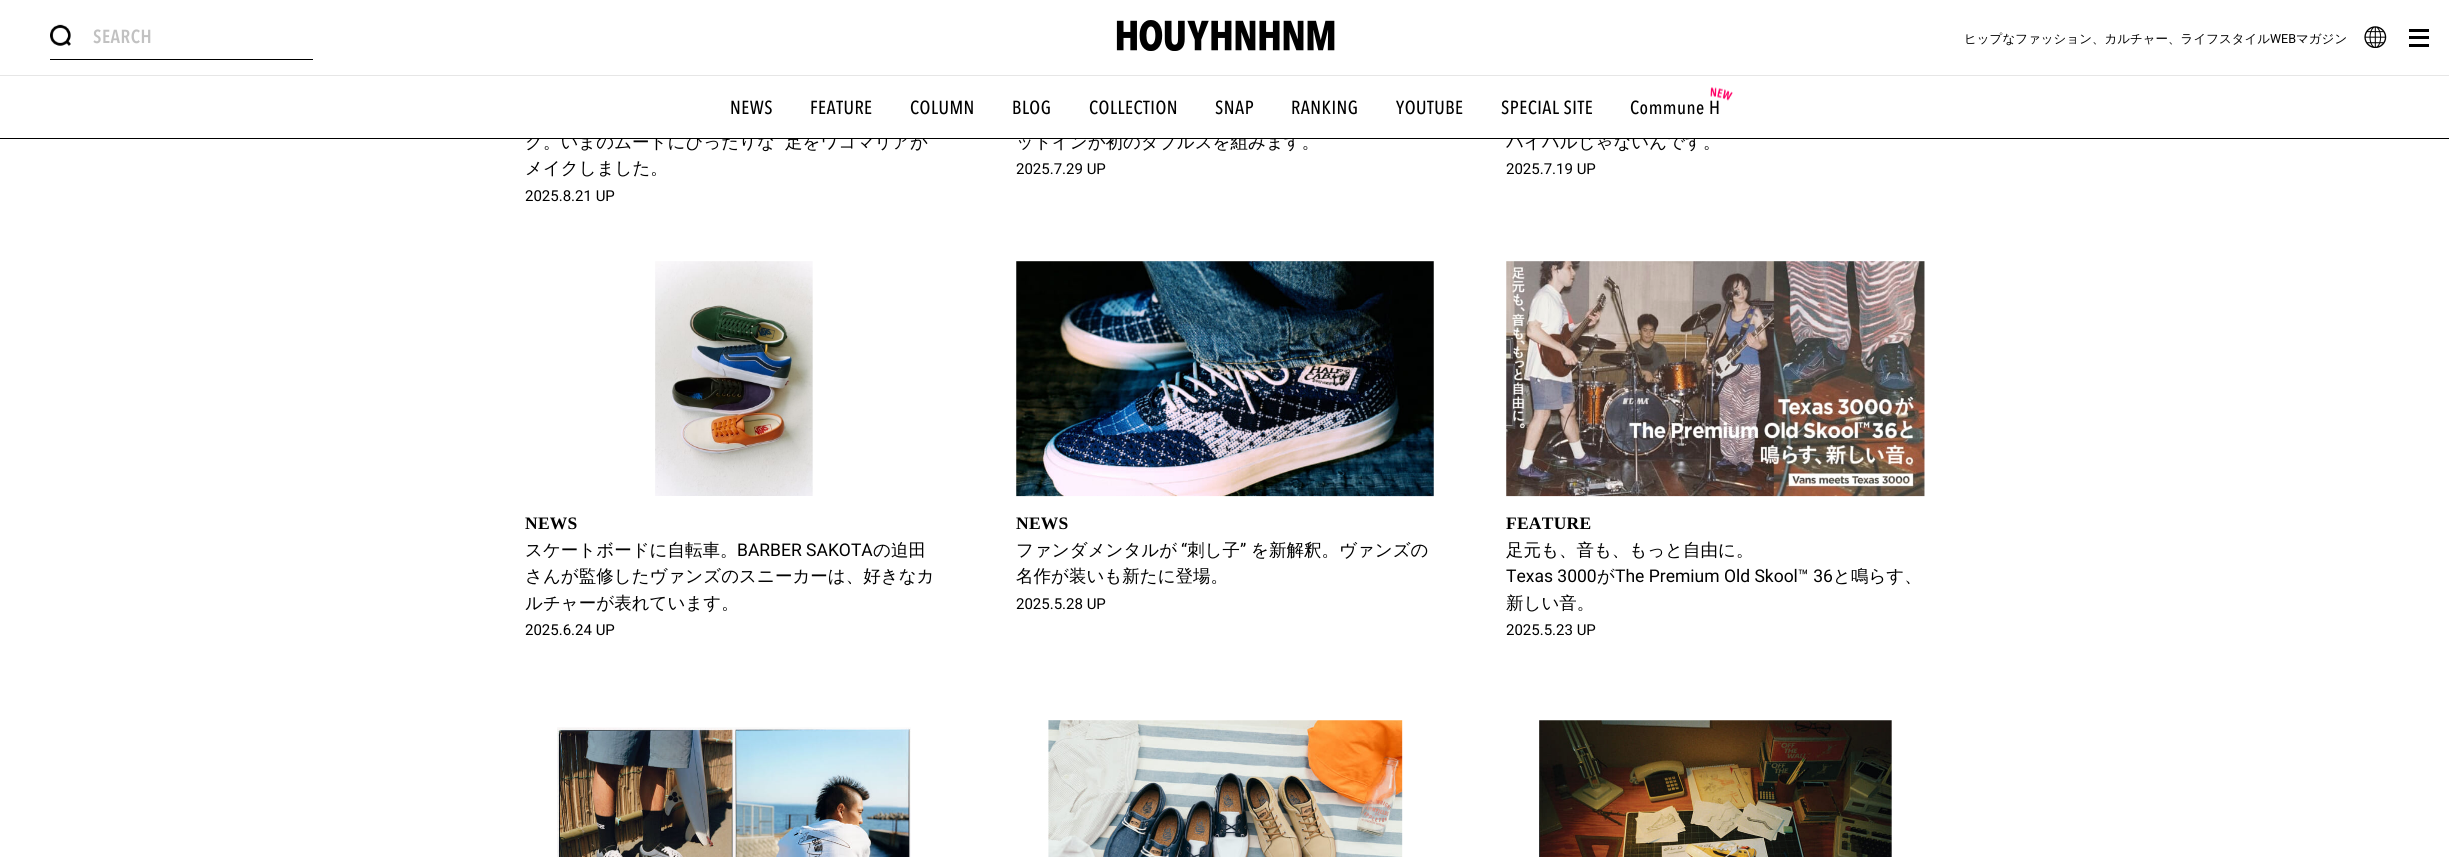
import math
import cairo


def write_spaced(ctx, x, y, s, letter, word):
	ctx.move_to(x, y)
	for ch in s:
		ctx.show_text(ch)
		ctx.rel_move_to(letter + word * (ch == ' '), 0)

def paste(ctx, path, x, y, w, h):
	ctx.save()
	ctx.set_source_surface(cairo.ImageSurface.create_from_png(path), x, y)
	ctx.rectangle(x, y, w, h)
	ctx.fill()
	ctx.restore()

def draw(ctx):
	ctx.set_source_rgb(1, 1, 1)
	ctx.paint()
	ctx.set_source_rgb(0.902, 0.902, 0.902)
	ctx.rectangle(0, 75, 2449, 1)
	ctx.fill()
	paste(ctx, 'media/1.png', 1116, 20, 219, 31)
	paste(ctx, 'media/2.png', 2364, 26, 23, 22)
	ctx.set_source_rgb(0, 0, 0)
	ctx.rectangle(2409, 29, 20, 3)
	ctx.rectangle(2409, 36, 20, 3)
	ctx.rectangle(2409, 44, 20, 3)
	ctx.rectangle(50, 59, 263, 1)
	ctx.fill()
	paste(ctx, 'media/3.png', 50, 24, 21, 22)
	ctx.select_font_face('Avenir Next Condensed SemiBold')
	ctx.set_font_size(18.75)
	ctx.set_source_rgb(0.757, 0.757, 0.757)
	write_spaced(ctx, 93, 43, 'SEARCH', 0.5, 0)
	ctx.select_font_face('WenQuanYi Zen Hei Medium')
	ctx.set_font_size(12.5)
	ctx.set_source_rgb(0, 0, 0)
	ctx.move_to(1964, 43)
	ctx.show_text('ヒップなファッション、カルチャー、ライフスタイル')
	ctx.select_font_face('Roboto')
	ctx.move_to(2270, 43)
	ctx.show_text('WEB')
	ctx.select_font_face('WenQuanYi Zen Hei Medium')
	ctx.move_to(2296, 43)
	ctx.show_text('マガジン')
	ctx.set_font_size(17.5)
	for x, y, s in [
		(525, 148, 'ク。いまのムードにぴったりな'),
		(785, 148, '足をワコマリアが'),
		(1016, 148, 'ットインが初のダブルスを組みます。'),
		(1506, 148, 'バイバルじゃないんです。'),
	]:
		ctx.move_to(x, y)
		ctx.show_text(s)
	ctx.set_source_rgb(1, 1, 1)
	ctx.rectangle(531, 133, 1171, 5)
	ctx.fill()
	ctx.set_source_rgb(0, 0, 0)
	ctx.rectangle(0, 138, 2449, 1)
	ctx.fill()
	ctx.select_font_face('Avenir Next Condensed Medium')
	ctx.set_font_size(18.75)
	for x, y, s in [
		(730, 114, 'NEWS'),
		(810, 114, 'FEATURE'),
		(910, 114, 'COLUMN'),
		(1012, 114, 'BLOG'),
		(1089, 114, 'COLLECTION'),
		(1215, 114, 'SNAP'),
		(1291, 114, 'RANKING'),
		(1396, 114, 'YOUTUBE'),
		(1501, 114, 'SPECIAL SITE'),
		(1630, 114, 'Commune H'),
	]:
		write_spaced(ctx, x, y, s, 0.5, 0)
	paste(ctx, 'media/4.png', 1710, 87, 23, 14)
	ctx.select_font_face('WenQuanYi Zen Hei Medium')
	ctx.set_font_size(17.5)
	ctx.move_to(525, 174)
	ctx.show_text('メイクしました。')
	ctx.select_font_face('Roboto')
	ctx.set_font_size(15)
	for x, y, s in [
		(525, 201, '2025.8.21 UP'),
		(1016, 174, '2025.7.29 UP'),
		(1506, 174, '2025.7.19 UP'),
	]:
		ctx.move_to(x, y)
		ctx.show_text(s)
	paste(ctx, 'media/5.png', 655, 261, 158, 235)
	ctx.select_font_face('Liberation Serif', cairo.FONT_SLANT_NORMAL, cairo.FONT_WEIGHT_BOLD)
	ctx.set_font_size(17.5)
	write_spaced(ctx, 525, 529, 'NEWS', 0.25, 0)
	ctx.select_font_face('WenQuanYi Zen Hei Medium')
	ctx.move_to(525, 556)
	ctx.show_text('スケートボードに自転車。')
	ctx.select_font_face('Roboto')
	ctx.move_to(737, 556)
	ctx.show_text('BARBER SAKOTA')
	ctx.select_font_face('WenQuanYi Zen Hei Medium')
	for x, y, s in [
		(873, 556, 'の迫田'),
		(525, 582, 'さんが監修したヴァンズのスニーカーは、好きなカ'),
		(525, 609, 'ルチャーが表れています。'),
	]:
		ctx.move_to(x, y)
		ctx.show_text(s)
	ctx.select_font_face('Roboto')
	ctx.set_font_size(15)
	ctx.move_to(525, 635)
	ctx.show_text('2025.6.24 UP')
	paste(ctx, 'media/6.png', 1016, 261, 418, 236)
	ctx.select_font_face('Liberation Serif', cairo.FONT_SLANT_NORMAL, cairo.FONT_WEIGHT_BOLD)
	ctx.set_font_size(17.5)
	write_spaced(ctx, 1016, 529, 'NEWS', 0.25, 0)
	ctx.select_font_face('WenQuanYi Zen Hei Medium')
	ctx.move_to(1016, 556)
	ctx.show_text('ファンダメンタルが')
	ctx.select_font_face('Roboto')
	ctx.move_to(1181, 556)
	ctx.show_text('“')
	ctx.select_font_face('WenQuanYi Zen Hei Medium')
	ctx.move_to(1187, 556)
	ctx.show_text('刺し子')
	ctx.select_font_face('Roboto')
	ctx.move_to(1240, 556)
	ctx.show_text('”')
	ctx.select_font_face('WenQuanYi Zen Hei Medium')
	ctx.move_to(1251, 556)
	ctx.show_text('を新解釈。ヴァンズの')
	ctx.move_to(1016, 582)
	ctx.show_text('名作が装いも新たに登場。')
	ctx.select_font_face('Roboto')
	ctx.set_font_size(15)
	ctx.move_to(1016, 609)
	ctx.show_text('2025.5.28 UP')
	paste(ctx, 'media/7.png', 1506, 261, 419, 236)
	ctx.select_font_face('Liberation Serif', cairo.FONT_SLANT_NORMAL, cairo.FONT_WEIGHT_BOLD)
	ctx.set_font_size(17.5)
	write_spaced(ctx, 1506, 529, 'FEATURE', 0.25, 0)
	ctx.select_font_face('WenQuanYi Zen Hei Medium')
	ctx.move_to(1506, 556)
	ctx.show_text('足元も、音も、もっと自由に。')
	ctx.select_font_face('Roboto')
	ctx.move_to(1506, 582)
	ctx.show_text('Texas 3000')
	ctx.select_font_face('WenQuanYi Zen Hei Medium')
	ctx.move_to(1597, 582)
	ctx.show_text('が')
	ctx.select_font_face('Roboto')
	ctx.move_to(1615, 582)
	ctx.show_text('The Premium Old Skool™ 36')
	ctx.select_font_face('WenQuanYi Zen Hei Medium')
	ctx.move_to(1833, 582)
	ctx.show_text('と鳴らす、')
	ctx.move_to(1506, 609)
	ctx.show_text('新しい音。')
	ctx.select_font_face('Roboto')
	ctx.set_font_size(15)
	ctx.move_to(1506, 635)
	ctx.show_text('2025.5.23 UP')
	paste(ctx, 'media/8.png', 557, 727, 354, 130)
	paste(ctx, 'media/9.png', 1048, 720, 355, 137)
	paste(ctx, 'media/10.png', 1539, 720, 353, 137)


surface = cairo.ImageSurface(cairo.FORMAT_RGB24, 2449, 857)
ctx = cairo.Context(surface)
options = cairo.FontOptions()
options.set_hint_metrics(cairo.HINT_METRICS_OFF)
options.set_hint_style(cairo.HINT_STYLE_NONE)
ctx.set_font_options(options)
ctx.set_miter_limit(4)
draw(ctx)
surface.write_to_png('image.png')
